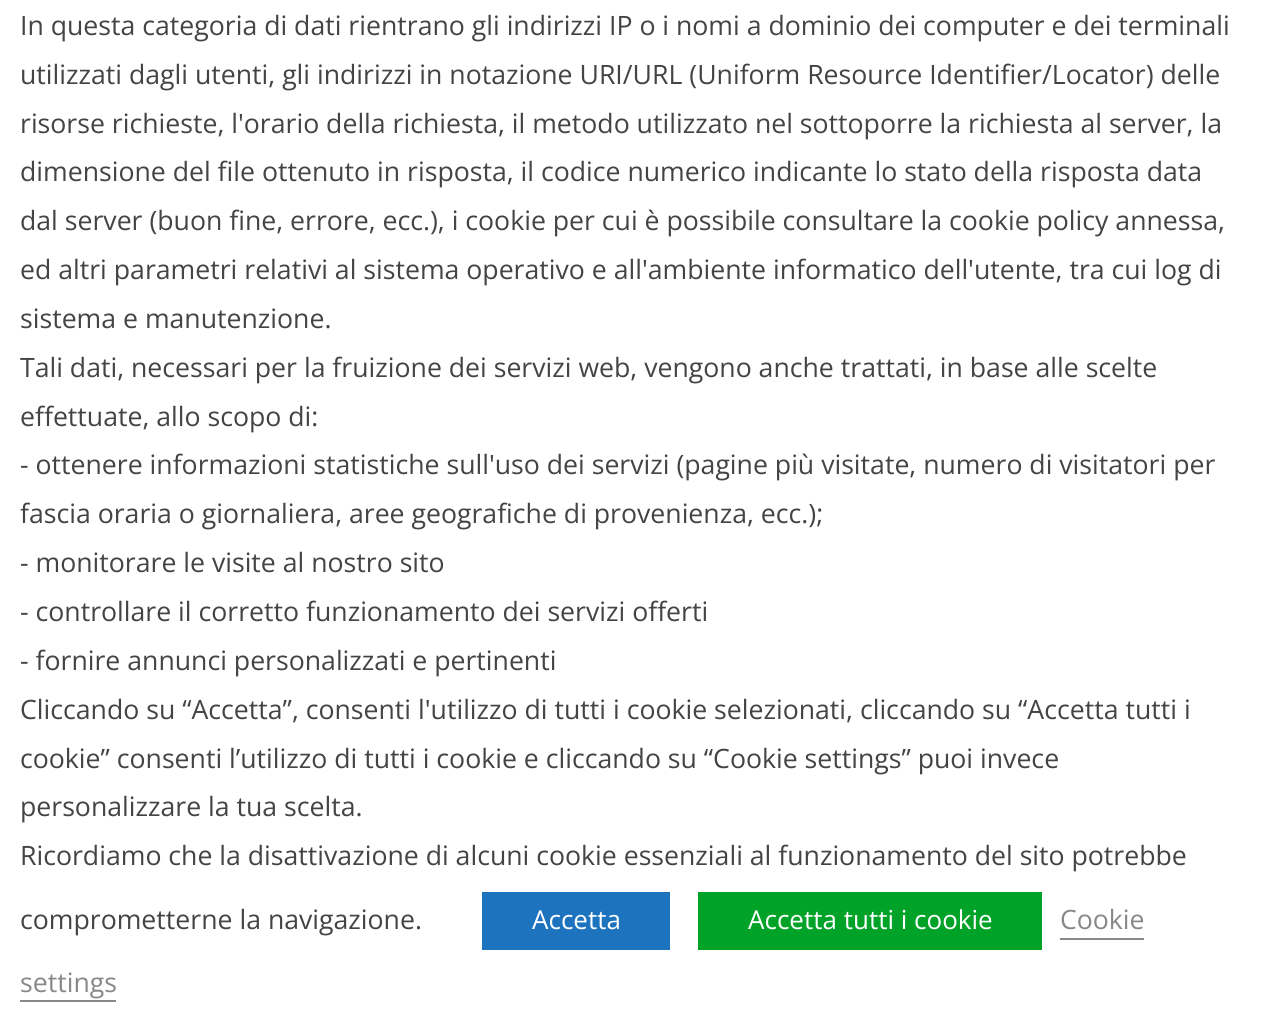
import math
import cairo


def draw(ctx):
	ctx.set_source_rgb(1, 1, 1)
	ctx.paint()
	ctx.select_font_face('Open Sans')
	ctx.set_font_size(26.65)
	ctx.set_source_rgb(0.267, 0.267, 0.267)
	for x, y, s in [
		(20, 35, 'In questa categoria di dati rientrano gli indirizzi IP o i nomi a dominio dei computer e dei terminali'),
		(20, 84, 'utilizzati dagli utenti, gli indirizzi in notazione URI/URL (Uniform Resource Identifier/Locator) delle'),
		(20, 133, 'risorse richieste, l\'orario della richiesta, il metodo utilizzato nel sottoporre la richiesta al server, la'),
		(20, 181, 'dimensione del file ottenuto in risposta, il codice numerico indicante lo stato della risposta data'),
		(20, 230, 'dal server (buon fine, errore, ecc.), i cookie per cui è possibile consultare la cookie policy annessa,'),
		(20, 279, 'ed altri parametri relativi al sistema operativo e all\'ambiente informatico dell\'utente, tra cui log di'),
		(20, 328, 'sistema e manutenzione.'),
		(20, 377, 'Tali dati, necessari per la fruizione dei servizi web, vengono anche trattati, in base alle scelte'),
		(20, 426, 'effettuate, allo scopo di:'),
		(20, 474, '- ottenere informazioni statistiche sull\'uso dei servizi (pagine più visitate, numero di visitatori per'),
		(20, 523, 'fascia oraria o giornaliera, aree geografiche di provenienza, ecc.);'),
		(20, 572, '- monitorare le visite al nostro sito'),
		(20, 621, '- controllare il corretto funzionamento dei servizi offerti'),
		(20, 670, '- fornire annunci personalizzati e pertinenti'),
		(20, 719, 'Cliccando su “Accetta”, consenti l\'utilizzo di tutti i cookie selezionati, cliccando su “Accetta tutti i'),
		(20, 768, 'cookie” consenti l’utilizzo di tutti i cookie e cliccando su “Cookie settings” puoi invece'),
		(20, 816, 'personalizzare la tua scelta.'),
		(20, 865, 'Ricordiamo che la disattivazione di alcuni cookie essenziali al funzionamento del sito potrebbe'),
		(20, 929, 'comprometterne la navigazione.'),
	]:
		ctx.move_to(x, y)
		ctx.show_text(s)
	ctx.set_source_rgb(0.118, 0.451, 0.745)
	ctx.rectangle(482, 892, 188, 58)
	ctx.fill()
	ctx.set_font_size(26)
	ctx.set_source_rgb(1, 1, 1)
	ctx.move_to(532, 929)
	ctx.show_text('Accetta')
	ctx.set_source_rgb(0, 0.639, 0.157)
	ctx.rectangle(698, 892, 344, 58)
	ctx.fill()
	ctx.set_source_rgb(1, 1, 1)
	ctx.move_to(748, 929)
	ctx.show_text('Accetta tutti i cookie')
	ctx.set_font_size(26.65)
	ctx.set_source_rgb(0.537, 0.533, 0.533)
	ctx.move_to(1060, 929)
	ctx.show_text('Cookie')
	ctx.rectangle(1060, 938, 84, 2)
	ctx.fill()
	ctx.move_to(20, 992)
	ctx.show_text('settings')
	ctx.rectangle(20, 1000, 96, 2)
	ctx.fill()


surface = cairo.ImageSurface(cairo.FORMAT_RGB24, 1264, 1028)
ctx = cairo.Context(surface)
options = cairo.FontOptions()
options.set_hint_metrics(cairo.HINT_METRICS_OFF)
options.set_hint_style(cairo.HINT_STYLE_NONE)
ctx.set_font_options(options)
ctx.set_miter_limit(4)
draw(ctx)
surface.write_to_png('image.png')
